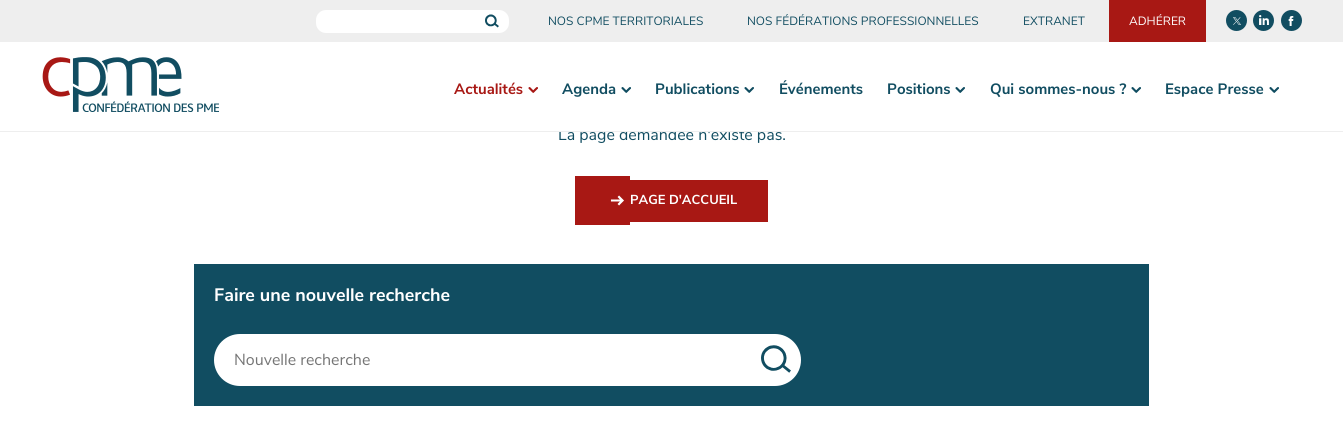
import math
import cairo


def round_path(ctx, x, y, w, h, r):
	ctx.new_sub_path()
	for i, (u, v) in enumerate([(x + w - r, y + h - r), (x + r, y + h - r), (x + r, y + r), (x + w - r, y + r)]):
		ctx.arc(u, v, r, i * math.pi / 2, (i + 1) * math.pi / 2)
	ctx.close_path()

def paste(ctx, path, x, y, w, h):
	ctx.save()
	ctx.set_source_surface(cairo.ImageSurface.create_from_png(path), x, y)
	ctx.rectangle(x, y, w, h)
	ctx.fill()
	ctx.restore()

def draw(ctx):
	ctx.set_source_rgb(1, 1, 1)
	ctx.paint()
	ctx.set_source_rgb(0.933, 0.933, 0.933)
	ctx.rectangle(0, 0, 1343, 42)
	ctx.fill()
	ctx.set_source_rgb(1, 1, 1)
	round_path(ctx, 316, 10, 193, 23, 10)
	ctx.fill()
	paste(ctx, 'media/1.png', 485, 14, 14, 14)
	ctx.select_font_face('Nunito Sans')
	ctx.set_font_size(12)
	ctx.set_source_rgb(0.067, 0.302, 0.38)
	for x, y, s in [
		(548, 25, 'NOS CPME TERRITORIALES'),
		(747, 25, 'NOS FÉDÉRATIONS PROFESSIONNELLES'),
		(1023, 25, 'EXTRANET'),
	]:
		ctx.move_to(x, y)
		ctx.show_text(s)
	ctx.set_source_rgb(0.659, 0.094, 0.082)
	ctx.rectangle(1109, 0, 97, 42)
	ctx.fill()
	ctx.set_source_rgb(1, 1, 1)
	ctx.move_to(1129, 25)
	ctx.show_text('ADHÉRER')
	ctx.set_source_rgb(0.067, 0.302, 0.38)
	ctx.new_path()
	ctx.arc(1236.5, 20.5, 10.5, 0, 2 * math.pi)
	ctx.fill()
	paste(ctx, 'media/2.png', 1233, 17, 8, 8)
	ctx.arc(1263.5, 20.5, 10.5, 0, 2 * math.pi)
	ctx.fill()
	paste(ctx, 'media/3.png', 1259, 15, 10, 10)
	ctx.arc(1291.5, 20.5, 10.5, 0, 2 * math.pi)
	ctx.fill()
	paste(ctx, 'media/4.png', 1288, 16, 6, 10)
	ctx.set_font_size(16)
	ctx.move_to(558, 140)
	ctx.show_text('La page demandée n\'existe pas.')
	ctx.set_source_rgb(1, 1, 1)
	ctx.rectangle(558, 127, 184, 4)
	ctx.fill()
	ctx.set_source_rgb(0.933, 0.933, 0.933)
	ctx.rectangle(0, 131, 1343, 1)
	ctx.fill()
	paste(ctx, 'media/5.png', 42, 57, 177, 55)
	ctx.select_font_face('Nunito Sans', cairo.FONT_SLANT_NORMAL, cairo.FONT_WEIGHT_BOLD)
	ctx.set_font_size(15)
	ctx.set_source_rgb(0.659, 0.094, 0.082)
	ctx.move_to(454, 94)
	ctx.show_text('Actualités')
	paste(ctx, 'media/6.png', 528, 87, 10, 6)
	ctx.set_source_rgb(0.067, 0.302, 0.38)
	ctx.move_to(562, 94)
	ctx.show_text('Agenda')
	paste(ctx, 'media/7.png', 621, 87, 10, 6)
	ctx.move_to(655, 94)
	ctx.show_text('Publications')
	paste(ctx, 'media/8.png', 744, 87, 10, 6)
	ctx.move_to(779, 94)
	ctx.show_text('Événements')
	ctx.move_to(887, 94)
	ctx.show_text('Positions')
	paste(ctx, 'media/8.png', 955, 87, 10, 6)
	ctx.move_to(990, 94)
	ctx.show_text('Qui sommes-nous ?')
	paste(ctx, 'media/7.png', 1131, 87, 10, 6)
	ctx.move_to(1165, 94)
	ctx.show_text('Espace Presse')
	paste(ctx, 'media/7.png', 1269, 87, 10, 6)
	ctx.set_source_rgb(0.659, 0.094, 0.082)
	ctx.rectangle(575, 176, 55, 49)
	ctx.fill()
	ctx.rectangle(630, 180, 138, 42)
	ctx.fill()
	paste(ctx, 'media/9.png', 610, 195, 14, 11)
	ctx.set_font_size(13)
	ctx.set_source_rgb(1, 1, 1)
	ctx.move_to(630, 204)
	ctx.show_text('PAGE D\'ACCUEIL')
	ctx.set_source_rgb(0.067, 0.302, 0.38)
	ctx.rectangle(194, 264, 955, 142)
	ctx.fill()
	ctx.set_font_size(18)
	ctx.set_source_rgb(1, 1, 1)
	ctx.move_to(214, 301)
	ctx.show_text('Faire une nouvelle recherche')
	round_path(ctx, 214, 334, 587, 52, 26)
	ctx.fill()
	ctx.select_font_face('Nunito Sans')
	ctx.set_font_size(16)
	ctx.set_source_rgb(0.459, 0.459, 0.459)
	ctx.move_to(234, 365)
	ctx.show_text('Nouvelle recherche')
	paste(ctx, 'media/10.png', 761, 345, 30, 28)


surface = cairo.ImageSurface(cairo.FORMAT_RGB24, 1343, 435)
ctx = cairo.Context(surface)
options = cairo.FontOptions()
options.set_hint_metrics(cairo.HINT_METRICS_OFF)
options.set_hint_style(cairo.HINT_STYLE_NONE)
ctx.set_font_options(options)
ctx.set_miter_limit(4)
draw(ctx)
surface.write_to_png('image.png')
